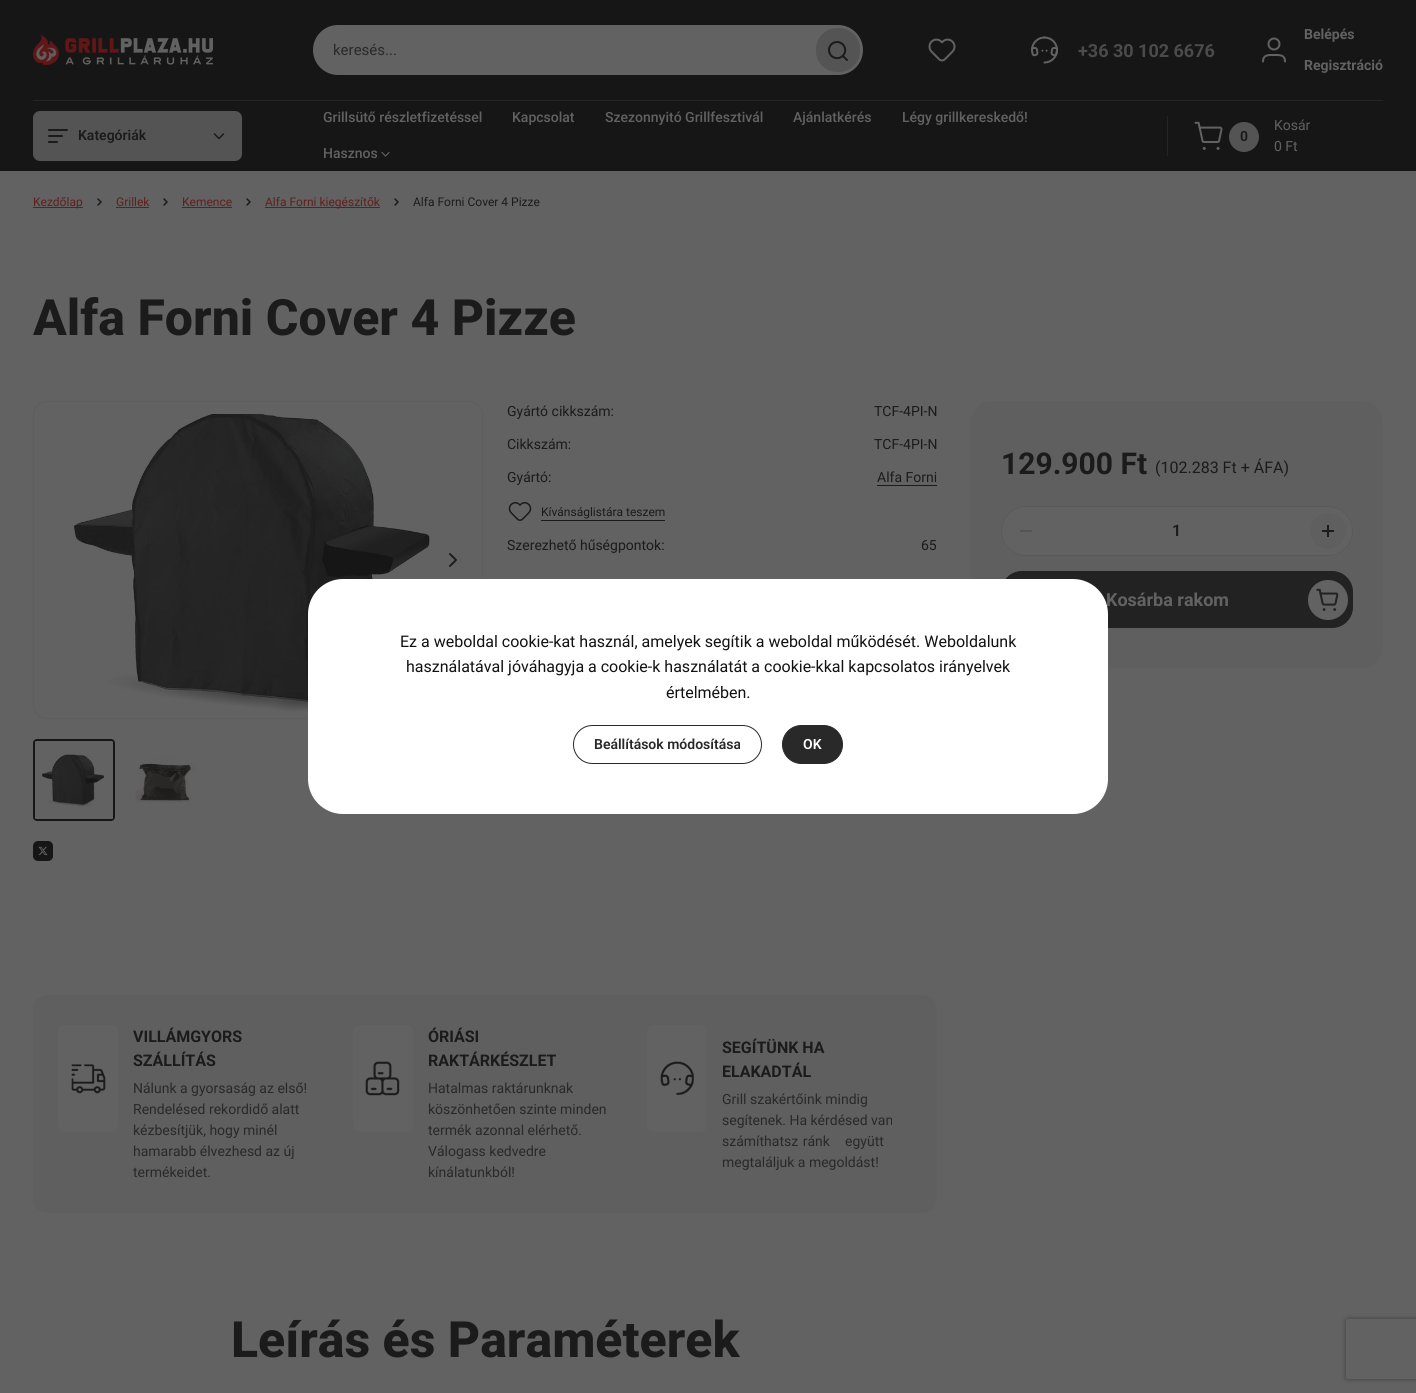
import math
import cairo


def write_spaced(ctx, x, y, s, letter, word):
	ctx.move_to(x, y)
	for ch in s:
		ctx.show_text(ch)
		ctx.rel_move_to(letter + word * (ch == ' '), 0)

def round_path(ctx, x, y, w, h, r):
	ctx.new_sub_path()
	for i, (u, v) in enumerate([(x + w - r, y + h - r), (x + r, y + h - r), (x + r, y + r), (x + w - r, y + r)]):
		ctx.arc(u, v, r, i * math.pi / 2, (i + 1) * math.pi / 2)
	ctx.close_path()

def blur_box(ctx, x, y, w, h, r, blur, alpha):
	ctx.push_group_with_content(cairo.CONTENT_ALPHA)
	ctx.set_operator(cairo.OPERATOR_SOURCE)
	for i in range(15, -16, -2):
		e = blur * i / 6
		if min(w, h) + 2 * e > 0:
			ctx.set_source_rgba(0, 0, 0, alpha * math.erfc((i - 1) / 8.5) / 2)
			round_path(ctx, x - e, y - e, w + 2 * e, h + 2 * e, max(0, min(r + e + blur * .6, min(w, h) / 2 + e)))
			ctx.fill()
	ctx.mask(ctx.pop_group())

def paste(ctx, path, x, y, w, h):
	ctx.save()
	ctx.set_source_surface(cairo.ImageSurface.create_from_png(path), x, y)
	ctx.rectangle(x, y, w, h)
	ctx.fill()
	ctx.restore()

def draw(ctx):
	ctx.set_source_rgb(0.384, 0.384, 0.384)
	ctx.paint()
	ctx.set_source_rgb(0.086, 0.086, 0.086)
	ctx.rectangle(0, 0, 1416, 171)
	ctx.fill()
	paste(ctx, 'media/1.png', 33, 35, 180, 30)
	ctx.set_source_rgb(0.384, 0.384, 0.384)
	round_path(ctx, 313, 25, 550, 50, 25)
	ctx.fill()
	ctx.select_font_face('Roboto')
	ctx.set_font_size(15)
	ctx.set_source_rgb(0.161, 0.161, 0.161)
	ctx.move_to(333, 55)
	ctx.show_text('keresés...')
	ctx.set_source_rgb(0.329, 0.329, 0.329)
	round_path(ctx, 816, 28, 44, 44, 21)
	ctx.fill()
	paste(ctx, 'media/2.png', 828, 41, 20, 20)
	paste(ctx, 'media/3.png', 928, 38, 28, 24)
	paste(ctx, 'media/4.png', 1031, 36, 27, 28)
	ctx.select_font_face('Roboto', cairo.FONT_SLANT_NORMAL, cairo.FONT_WEIGHT_BOLD)
	ctx.set_font_size(18)
	ctx.set_source_rgb(0.294, 0.294, 0.294)
	ctx.move_to(1078, 57)
	ctx.show_text('+36 30 102 6676')
	ctx.new_path()
	ctx.arc(1274, 44, 5.5, 0, 2 * math.pi)
	ctx.set_source_rgb(0.384, 0.384, 0.384)
	ctx.stroke()
	ctx.new_path()
	ctx.move_to(1285, 61.5)
	ctx.curve_to(1285, 54.5, 1279.5, 55, 1274, 55)
	ctx.curve_to(1268.5, 55, 1263, 54.5, 1263, 61.5)
	ctx.set_line_cap(cairo.LINE_CAP_ROUND)
	ctx.set_line_join(cairo.LINE_JOIN_ROUND)
	ctx.stroke()
	ctx.set_font_size(14)
	ctx.move_to(1304, 39)
	ctx.show_text('Belépés')
	ctx.move_to(1304, 70)
	ctx.show_text('Regisztráció')
	ctx.set_source_rgb(0.145, 0.145, 0.145)
	ctx.rectangle(33, 100, 1350, 1)
	ctx.fill()
	ctx.set_source_rgb(0.329, 0.329, 0.329)
	round_path(ctx, 33, 111, 209, 50, 7)
	ctx.fill()
	paste(ctx, 'media/5.png', 48, 129, 20, 14)
	ctx.select_font_face('Roboto SemiBold')
	ctx.set_source_rgb(0.106, 0.106, 0.106)
	ctx.move_to(78, 140)
	ctx.show_text('Kategóriák')
	ctx.new_path()
	ctx.move_to(223.5, 134)
	ctx.line_to(219, 138.5)
	ctx.line_to(214.5, 134)
	ctx.set_line_width(1.5)
	ctx.stroke()
	ctx.select_font_face('Roboto Medium')
	ctx.set_source_rgb(0.384, 0.384, 0.384)
	for x, y, s in [
		(323, 122, 'Grillsütő részletfizetéssel'),
		(512, 122, 'Kapcsolat'),
		(605, 122, 'Szezonnyitó Grillfesztivál'),
		(793, 122, 'Ajánlatkérés'),
		(902, 122, 'Légy grillkereskedő!'),
		(323, 158, 'Hasznos'),
	]:
		ctx.move_to(x, y)
		ctx.show_text(s)
	ctx.new_path()
	ctx.move_to(389, 152.5)
	ctx.line_to(385.5, 156)
	ctx.line_to(382, 152.5)
	ctx.set_line_width(1.1)
	ctx.stroke()
	ctx.set_source_rgb(0.145, 0.145, 0.145)
	ctx.rectangle(1167, 116, 1, 40)
	ctx.fill()
	paste(ctx, 'media/6.png', 1194, 121, 29, 29)
	ctx.set_source_rgb(0.329, 0.329, 0.329)
	ctx.arc(1244, 137, 15, 0, 2 * math.pi)
	ctx.fill()
	ctx.select_font_face('Roboto', cairo.FONT_SLANT_NORMAL, cairo.FONT_WEIGHT_BOLD)
	ctx.set_source_rgb(0.106, 0.106, 0.106)
	ctx.move_to(1240, 141)
	ctx.show_text('0')
	ctx.select_font_face('Roboto')
	ctx.set_source_rgb(0.384, 0.384, 0.384)
	ctx.move_to(1274, 130)
	ctx.show_text('Kosár')
	ctx.move_to(1274, 151)
	ctx.show_text('0 Ft')
	ctx.set_source_rgb(0.38, 0.122, 0.122)
	ctx.rectangle(33, 207, 50, 1)
	ctx.fill()
	ctx.set_font_size(12)
	ctx.move_to(33, 206)
	ctx.show_text('Kezdőlap')
	ctx.new_path()
	ctx.move_to(98, 205)
	ctx.line_to(101, 202)
	ctx.line_to(98, 199)
	ctx.set_source_rgb(0.106, 0.106, 0.106)
	ctx.set_line_width(1.5)
	ctx.stroke()
	ctx.set_source_rgb(0.38, 0.122, 0.122)
	ctx.move_to(116, 206)
	ctx.show_text('Grillek')
	ctx.rectangle(116, 207, 33, 1)
	ctx.fill()
	ctx.new_path()
	ctx.move_to(164, 205)
	ctx.line_to(167, 202)
	ctx.line_to(164, 199)
	ctx.set_source_rgb(0.106, 0.106, 0.106)
	ctx.stroke()
	ctx.set_source_rgb(0.38, 0.122, 0.122)
	ctx.move_to(182, 206)
	ctx.show_text('Kemence')
	ctx.rectangle(182, 207, 50, 1)
	ctx.fill()
	ctx.new_path()
	ctx.move_to(247, 205)
	ctx.line_to(250, 202)
	ctx.line_to(247, 199)
	ctx.set_source_rgb(0.106, 0.106, 0.106)
	ctx.stroke()
	ctx.set_source_rgb(0.38, 0.122, 0.122)
	ctx.rectangle(265, 207, 115, 1)
	ctx.fill()
	ctx.move_to(265, 206)
	ctx.show_text('Alfa Forni kiegészítők')
	ctx.new_path()
	ctx.move_to(395, 205)
	ctx.line_to(398, 202)
	ctx.line_to(395, 199)
	ctx.set_source_rgb(0.106, 0.106, 0.106)
	ctx.stroke()
	ctx.move_to(413, 206)
	ctx.show_text('Alfa Forni Cover 4 Pizze')
	ctx.select_font_face('Roboto ExtraBold')
	ctx.set_font_size(50)
	ctx.move_to(33, 335)
	ctx.show_text('Alfa Forni Cover 4 Pizze')
	round_path(ctx, 33.5, 401.5, 449, 317, 13.5)
	ctx.set_source_rgb(0.369, 0.369, 0.369)
	ctx.set_line_width(1)
	ctx.set_line_cap(cairo.LINE_CAP_BUTT)
	ctx.set_line_join(cairo.LINE_JOIN_MITER)
	ctx.stroke()
	paste(ctx, 'media/7.png', 72, 413, 410, 303)
	ctx.new_path()
	ctx.move_to(450, 554)
	ctx.line_to(456, 560)
	ctx.line_to(450, 566)
	ctx.set_source_rgb(0.118, 0.118, 0.118)
	ctx.set_line_width(2)
	ctx.set_line_cap(cairo.LINE_CAP_ROUND)
	ctx.set_line_join(cairo.LINE_JOIN_ROUND)
	ctx.stroke()
	round_path(ctx, 34, 740, 80, 80, 3)
	ctx.set_source_rgb(0.086, 0.086, 0.086)
	ctx.set_line_cap(cairo.LINE_CAP_BUTT)
	ctx.set_line_join(cairo.LINE_JOIN_MITER)
	ctx.stroke()
	paste(ctx, 'media/8.png', 35, 741, 78, 78)
	paste(ctx, 'media/9.png', 135, 757, 61, 46)
	paste(ctx, 'media/10.png', 33, 841, 20, 20)
	ctx.select_font_face('Roboto')
	ctx.set_font_size(14)
	ctx.set_source_rgb(0.106, 0.106, 0.106)
	for x, y, s in [
		(507, 416, 'Gyártó cikkszám:'),
		(874, 416, 'TCF-4PI-N'),
		(507, 449, 'Cikkszám:'),
		(874, 449, 'TCF-4PI-N'),
		(507, 482, 'Gyártó:'),
		(877, 482, 'Alfa Forni'),
	]:
		ctx.move_to(x, y)
		ctx.show_text(s)
	ctx.rectangle(877, 485, 60, 1)
	ctx.fill()
	paste(ctx, 'media/11.png', 508, 502, 24, 19)
	ctx.set_font_size(12)
	ctx.move_to(541, 516)
	ctx.show_text('Kívánságlistára teszem')
	ctx.rectangle(541, 520, 124, 1)
	ctx.fill()
	ctx.set_font_size(14)
	ctx.move_to(507, 550)
	ctx.show_text('Szerezhető hűségpontok:')
	ctx.move_to(921, 550)
	ctx.show_text('65')
	ctx.set_source_rgb(0.373, 0.373, 0.373)
	round_path(ctx, 971, 401, 412, 267, 21)
	ctx.fill()
	ctx.select_font_face('Roboto', cairo.FONT_SLANT_NORMAL, cairo.FONT_WEIGHT_BOLD)
	ctx.set_font_size(30)
	ctx.set_source_rgb(0.106, 0.106, 0.106)
	ctx.move_to(1001, 474)
	ctx.show_text('129.900 Ft')
	ctx.select_font_face('Roboto')
	ctx.set_font_size(16)
	ctx.move_to(1155, 473)
	ctx.show_text('(102.283 Ft + ÁFA)')
	ctx.set_source_rgb(0.384, 0.384, 0.384)
	round_path(ctx, 1001, 506, 352, 50, 25)
	ctx.fill()
	round_path(ctx, 1001.5, 506.5, 351, 49, 24.5)
	ctx.set_source_rgba(0.106, 0.106, 0.106, 0.1)
	ctx.set_line_width(1)
	ctx.stroke()
	ctx.set_source_rgb(0.333, 0.333, 0.333)
	ctx.rectangle(1020, 530, 12, 2)
	ctx.fill()
	ctx.select_font_face('Roboto SemiBold')
	ctx.set_source_rgb(0.106, 0.106, 0.106)
	ctx.move_to(1172, 536)
	ctx.show_text('1')
	ctx.set_source_rgb(0.373, 0.373, 0.373)
	ctx.new_path()
	ctx.arc(1328, 531, 18, 0, 2 * math.pi)
	ctx.fill()
	ctx.set_source_rgb(0.106, 0.106, 0.106)
	ctx.rectangle(1322, 530, 12, 2)
	ctx.fill()
	ctx.rectangle(1327, 525, 2, 12)
	ctx.fill()
	ctx.set_source_rgb(0.133, 0.133, 0.133)
	round_path(ctx, 1001.5, 571.5, 351, 56, 20.5)
	ctx.fill_preserve()
	ctx.stroke()
	ctx.select_font_face('Roboto', cairo.FONT_SLANT_NORMAL, cairo.FONT_WEIGHT_BOLD)
	ctx.set_font_size(18)
	ctx.set_source_rgb(0.384, 0.384, 0.384)
	ctx.move_to(1106, 606)
	ctx.show_text('Kosárba rakom')
	paste(ctx, 'media/12.png', 1308, 580, 40, 40)
	ctx.set_source_rgb(0.373, 0.373, 0.373)
	round_path(ctx, 33, 995, 904, 218, 14)
	ctx.fill()
	ctx.set_source_rgb(0.384, 0.384, 0.384)
	round_path(ctx, 58, 1025, 60, 107, 7)
	ctx.fill()
	paste(ctx, 'media/13.png', 71, 1064, 35, 30)
	ctx.set_font_size(16)
	ctx.set_source_rgb(0.106, 0.106, 0.106)
	ctx.move_to(133, 1042)
	ctx.show_text('VILLÁMGYORS')
	ctx.move_to(133, 1066)
	ctx.show_text('SZÁLLÍTÁS')
	ctx.select_font_face('Roboto')
	ctx.set_font_size(14)
	ctx.set_source_rgb(0.161, 0.161, 0.161)
	for x, y, s in [
		(133, 1093, 'Nálunk a gyorsaság az első!'),
		(133, 1114, 'Rendelésed rekordidő alatt'),
		(133, 1135, 'kézbesítjük, hogy minél'),
		(133, 1156, 'hamarabb élvezhesd az új'),
		(133, 1177, 'termékeidet.'),
	]:
		ctx.move_to(x, y)
		ctx.show_text(s)
	ctx.set_source_rgb(0.384, 0.384, 0.384)
	round_path(ctx, 353, 1025, 60, 107, 7)
	ctx.fill()
	paste(ctx, 'media/14.png', 365, 1061, 35, 35)
	ctx.select_font_face('Roboto', cairo.FONT_SLANT_NORMAL, cairo.FONT_WEIGHT_BOLD)
	ctx.set_font_size(16)
	ctx.set_source_rgb(0.106, 0.106, 0.106)
	ctx.move_to(428, 1042)
	ctx.show_text('ÓRIÁSI')
	ctx.move_to(428, 1066)
	ctx.show_text('RAKTÁRKÉSZLET')
	ctx.select_font_face('Roboto')
	ctx.set_font_size(14)
	ctx.set_source_rgb(0.161, 0.161, 0.161)
	for x, y, s in [
		(428, 1093, 'Hatalmas raktárunknak'),
		(428, 1114, 'köszönhetően szinte minden'),
		(428, 1135, 'termék azonnal elérhető.'),
		(428, 1156, 'Válogass kedvedre'),
		(428, 1177, 'kínálatunkból!'),
	]:
		ctx.move_to(x, y)
		ctx.show_text(s)
	ctx.set_source_rgb(0.384, 0.384, 0.384)
	round_path(ctx, 647, 1025, 60, 107, 7)
	ctx.fill()
	paste(ctx, 'media/15.png', 660, 1061, 34, 34)
	ctx.select_font_face('Roboto', cairo.FONT_SLANT_NORMAL, cairo.FONT_WEIGHT_BOLD)
	ctx.set_font_size(16)
	ctx.set_source_rgb(0.106, 0.106, 0.106)
	ctx.move_to(722, 1053)
	ctx.show_text('SEGÍTÜNK HA')
	ctx.move_to(722, 1077)
	ctx.show_text('ELAKADTÁL')
	ctx.select_font_face('Roboto')
	ctx.set_font_size(14)
	ctx.set_source_rgb(0.161, 0.161, 0.161)
	ctx.move_to(722, 1104)
	ctx.show_text('Grill szakértőink mindig')
	ctx.move_to(722, 1125)
	ctx.show_text('segítenek. Ha kérdésed van')
	write_spaced(ctx, 722, 1146, 'számíthatsz ránk – együtt', 0, 1)
	ctx.move_to(722, 1167)
	ctx.show_text('megtaláljuk a megoldást!')
	ctx.select_font_face('Roboto ExtraBold')
	ctx.set_font_size(50)
	ctx.set_source_rgb(0.106, 0.106, 0.106)
	ctx.move_to(231, 1357)
	ctx.show_text('Leírás és Paraméterek')
	ctx.set_source_rgb(1, 1, 1)
	round_path(ctx, 308, 579, 800, 235, 35)
	ctx.fill()
	ctx.select_font_face('Roboto')
	ctx.set_font_size(16)
	ctx.set_source_rgb(0.071, 0.071, 0.071)
	for x, y, s in [
		(400, 647, 'Ez a weboldal cookie-kat használ, amelyek segítik a weboldal működését. Weboldalunk'),
		(406, 672, 'használatával jóváhagyja a cookie-k használatát a cookie-kkal kapcsolatos irányelvek'),
		(666, 698, 'értelmében.'),
	]:
		ctx.move_to(x, y)
		ctx.show_text(s)
	round_path(ctx, 573.5, 725.5, 188, 38, 19)
	ctx.set_source_rgb(0.161, 0.161, 0.161)
	ctx.stroke()
	ctx.select_font_face('Roboto SemiBold')
	ctx.set_font_size(14)
	ctx.move_to(594, 749)
	ctx.show_text('Beállítások módosítása')
	round_path(ctx, 782.5, 725.5, 60, 38, 19)
	ctx.fill_preserve()
	ctx.stroke()
	ctx.set_source_rgb(1, 1, 1)
	ctx.move_to(803, 749)
	ctx.show_text('OK')
	ctx.save()
	ctx.set_fill_rule(cairo.FILL_RULE_EVEN_ODD)
	ctx.new_path()
	ctx.move_to(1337, 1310)
	ctx.line_to(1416, 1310)
	ctx.line_to(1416, 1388)
	ctx.line_to(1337, 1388)
	ctx.close_path()
	ctx.move_to(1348, 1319)
	ctx.line_to(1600, 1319)
	ctx.curve_to(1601, 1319, 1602, 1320, 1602, 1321)
	ctx.line_to(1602, 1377)
	ctx.curve_to(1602, 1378, 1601, 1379, 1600, 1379)
	ctx.line_to(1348, 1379)
	ctx.curve_to(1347, 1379, 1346, 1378, 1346, 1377)
	ctx.line_to(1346, 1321)
	ctx.curve_to(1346, 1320, 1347, 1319, 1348, 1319)
	ctx.close_path()
	ctx.clip()
	ctx.set_source_rgb(0.235, 0.235, 0.235)
	blur_box(ctx, 1346, 1319, 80, 60, 2, 2.5, 1)
	ctx.restore()


surface = cairo.ImageSurface(cairo.FORMAT_RGB24, 1416, 1393)
ctx = cairo.Context(surface)
options = cairo.FontOptions()
options.set_hint_metrics(cairo.HINT_METRICS_OFF)
options.set_hint_style(cairo.HINT_STYLE_NONE)
ctx.set_font_options(options)
ctx.set_miter_limit(4)
draw(ctx)
surface.write_to_png('image.png')
